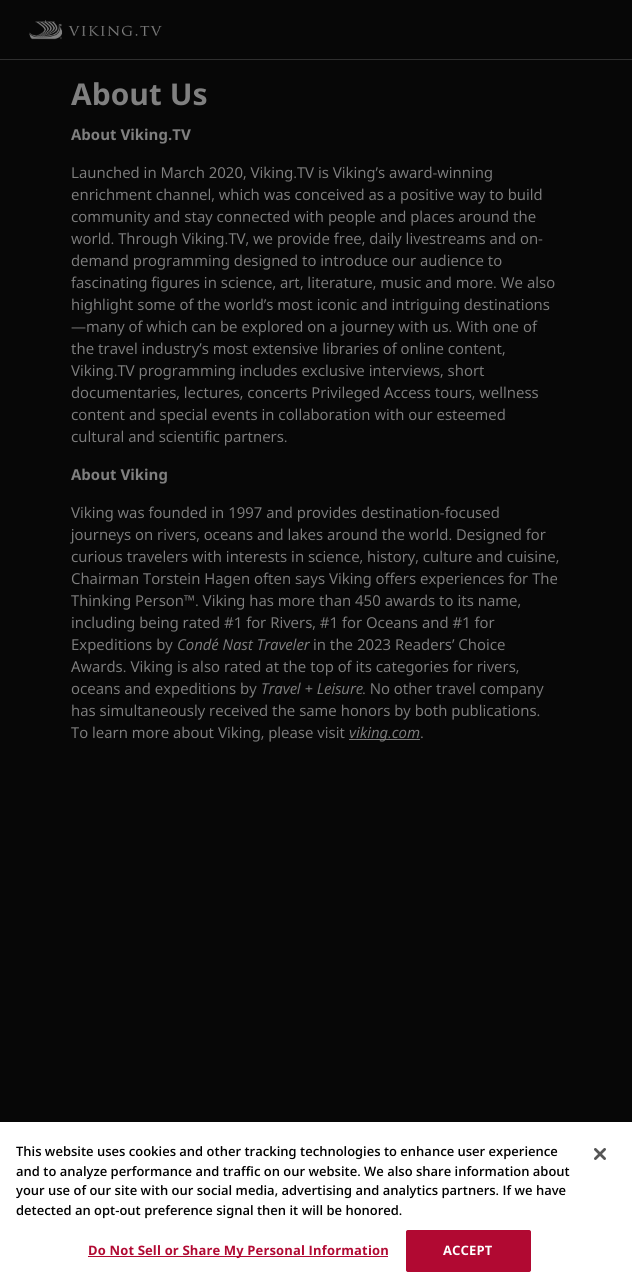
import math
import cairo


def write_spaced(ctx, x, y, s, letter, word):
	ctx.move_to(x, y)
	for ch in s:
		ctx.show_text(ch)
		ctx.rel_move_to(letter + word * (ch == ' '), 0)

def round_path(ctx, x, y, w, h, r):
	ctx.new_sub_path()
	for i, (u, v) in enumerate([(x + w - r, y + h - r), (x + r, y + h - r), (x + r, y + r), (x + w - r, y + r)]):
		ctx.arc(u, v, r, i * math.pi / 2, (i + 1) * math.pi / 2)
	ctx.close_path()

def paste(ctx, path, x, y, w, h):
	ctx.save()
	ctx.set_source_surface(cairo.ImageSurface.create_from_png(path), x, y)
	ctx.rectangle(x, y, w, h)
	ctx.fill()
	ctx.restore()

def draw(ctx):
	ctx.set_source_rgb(0.031, 0.031, 0.031)
	ctx.paint()
	ctx.set_source_rgb(0.184, 0.184, 0.184)
	ctx.rectangle(0, 59, 632, 1)
	ctx.fill()
	paste(ctx, 'media/1.png', 29, 20, 133, 20)
	ctx.select_font_face('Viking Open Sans', cairo.FONT_SLANT_NORMAL, cairo.FONT_WEIGHT_BOLD)
	ctx.set_font_size(30)
	ctx.set_source_rgb(0.502, 0.502, 0.502)
	ctx.move_to(71, 105)
	ctx.show_text('About Us')
	ctx.set_font_size(15)
	ctx.move_to(71, 140)
	ctx.show_text('About Viking.TV')
	ctx.select_font_face('Viking Open Sans')
	for x, y, s in [
		(71, 178, 'Launched in March 2020, Viking.TV is Viking’s award-winning'),
		(71, 200, 'enrichment channel, which was conceived as a positive way to build'),
		(71, 222, 'community and stay connected with people and places around the'),
		(71, 244, 'world. Through Viking.TV, we provide free, daily livestreams and on-'),
		(71, 266, 'demand programming designed to introduce our audience to'),
		(71, 288, 'fascinating figures in science, art, literature, music and more. We also'),
		(71, 310, 'highlight some of the world’s most iconic and intriguing destinations'),
		(71, 332, '—many of which can be explored on a journey with us. With one of'),
		(71, 354, 'the travel industry’s most extensive libraries of online content,'),
		(71, 376, 'Viking.TV programming includes exclusive interviews, short'),
		(71, 398, 'documentaries, lectures, concerts Privileged Access tours, wellness'),
		(71, 420, 'content and special events in collaboration with our esteemed'),
		(71, 442, 'cultural and scientific partners.'),
	]:
		ctx.move_to(x, y)
		ctx.show_text(s)
	ctx.select_font_face('Viking Open Sans', cairo.FONT_SLANT_NORMAL, cairo.FONT_WEIGHT_BOLD)
	ctx.move_to(71, 480)
	ctx.show_text('About Viking')
	ctx.select_font_face('Viking Open Sans')
	for x, y, s in [
		(71, 518, 'Viking was founded in 1997 and provides destination-focused'),
		(71, 540, 'journeys on rivers, oceans and lakes around the world. Designed for'),
		(71, 562, 'curious travelers with interests in science, history, culture and cuisine,'),
		(71, 584, 'Chairman Torstein Hagen often says Viking offers experiences for The'),
		(71, 606, 'Thinking Person™. Viking has more than 450 awards to its name,'),
		(71, 628, 'including being rated #1 for Rivers, #1 for Oceans and #1 for'),
		(71, 650, 'Expeditions by'),
	]:
		ctx.move_to(x, y)
		ctx.show_text(s)
	ctx.select_font_face('Viking Open Sans', cairo.FONT_SLANT_ITALIC)
	ctx.move_to(177, 650)
	ctx.show_text('Condé Nast Traveler')
	ctx.select_font_face('Viking Open Sans')
	for x, y, s in [
		(313, 650, 'in the 2023 Readers’ Choice'),
		(71, 672, 'Awards. Viking is also rated at the top of its categories for rivers,'),
		(71, 694, 'oceans and expeditions by'),
	]:
		ctx.move_to(x, y)
		ctx.show_text(s)
	ctx.select_font_face('Viking Open Sans', cairo.FONT_SLANT_ITALIC)
	ctx.move_to(261, 694)
	ctx.show_text('Travel + Leisure')
	ctx.select_font_face('Viking Open Sans')
	for x, y, s in [
		(362, 694, '. No other travel company'),
		(71, 716, 'has simultaneously received the same honors by both publications.'),
		(71, 738, 'To learn more about Viking, please visit'),
	]:
		ctx.move_to(x, y)
		ctx.show_text(s)
	ctx.rectangle(349, 739, 71, 1)
	ctx.fill()
	ctx.select_font_face('Viking Open Sans', cairo.FONT_SLANT_ITALIC)
	ctx.move_to(349, 738)
	ctx.show_text('viking.com')
	ctx.select_font_face('Viking Open Sans')
	ctx.move_to(420, 738)
	ctx.show_text('.')
	ctx.set_source_rgb(1, 1, 1)
	ctx.rectangle(0, 1122, 632, 166)
	ctx.fill()
	ctx.select_font_face('Viking Open Sans SemiBold')
	ctx.set_font_size(13)
	ctx.set_source_rgb(0, 0, 0)
	for x, y, s in [
		(16, 1156, 'This website uses cookies and other tracking technologies to enhance user experience'),
		(16, 1176, 'and to analyze performance and traffic on our website. We also share information about'),
		(16, 1195, 'your use of our site with our social media, advertising and analytics partners. If we have'),
		(16, 1215, 'detected an opt-out preference signal then it will be honored.'),
	]:
		ctx.move_to(x, y)
		ctx.show_text(s)
	ctx.set_source_rgb(0.694, 0.039, 0.196)
	ctx.rectangle(88, 1256, 300, 1)
	ctx.fill()
	ctx.select_font_face('Viking Open Sans', cairo.FONT_SLANT_NORMAL, cairo.FONT_WEIGHT_BOLD)
	write_spaced(ctx, 88, 1255, 'Do Not Sell or Share My Personal Information', 0.15, 0)
	round_path(ctx, 406.5, 1230.5, 124, 41, 1.5)
	ctx.fill_preserve()
	ctx.set_line_width(1)
	ctx.stroke()
	ctx.set_source_rgb(1, 1, 1)
	write_spaced(ctx, 443, 1255, 'ACCEPT', 0.15, 0)
	paste(ctx, 'media/2.png', 594, 1148, 12, 12)


surface = cairo.ImageSurface(cairo.FORMAT_RGB24, 632, 1288)
ctx = cairo.Context(surface)
options = cairo.FontOptions()
options.set_hint_metrics(cairo.HINT_METRICS_OFF)
options.set_hint_style(cairo.HINT_STYLE_NONE)
ctx.set_font_options(options)
ctx.set_miter_limit(4)
draw(ctx)
surface.write_to_png('image.png')
